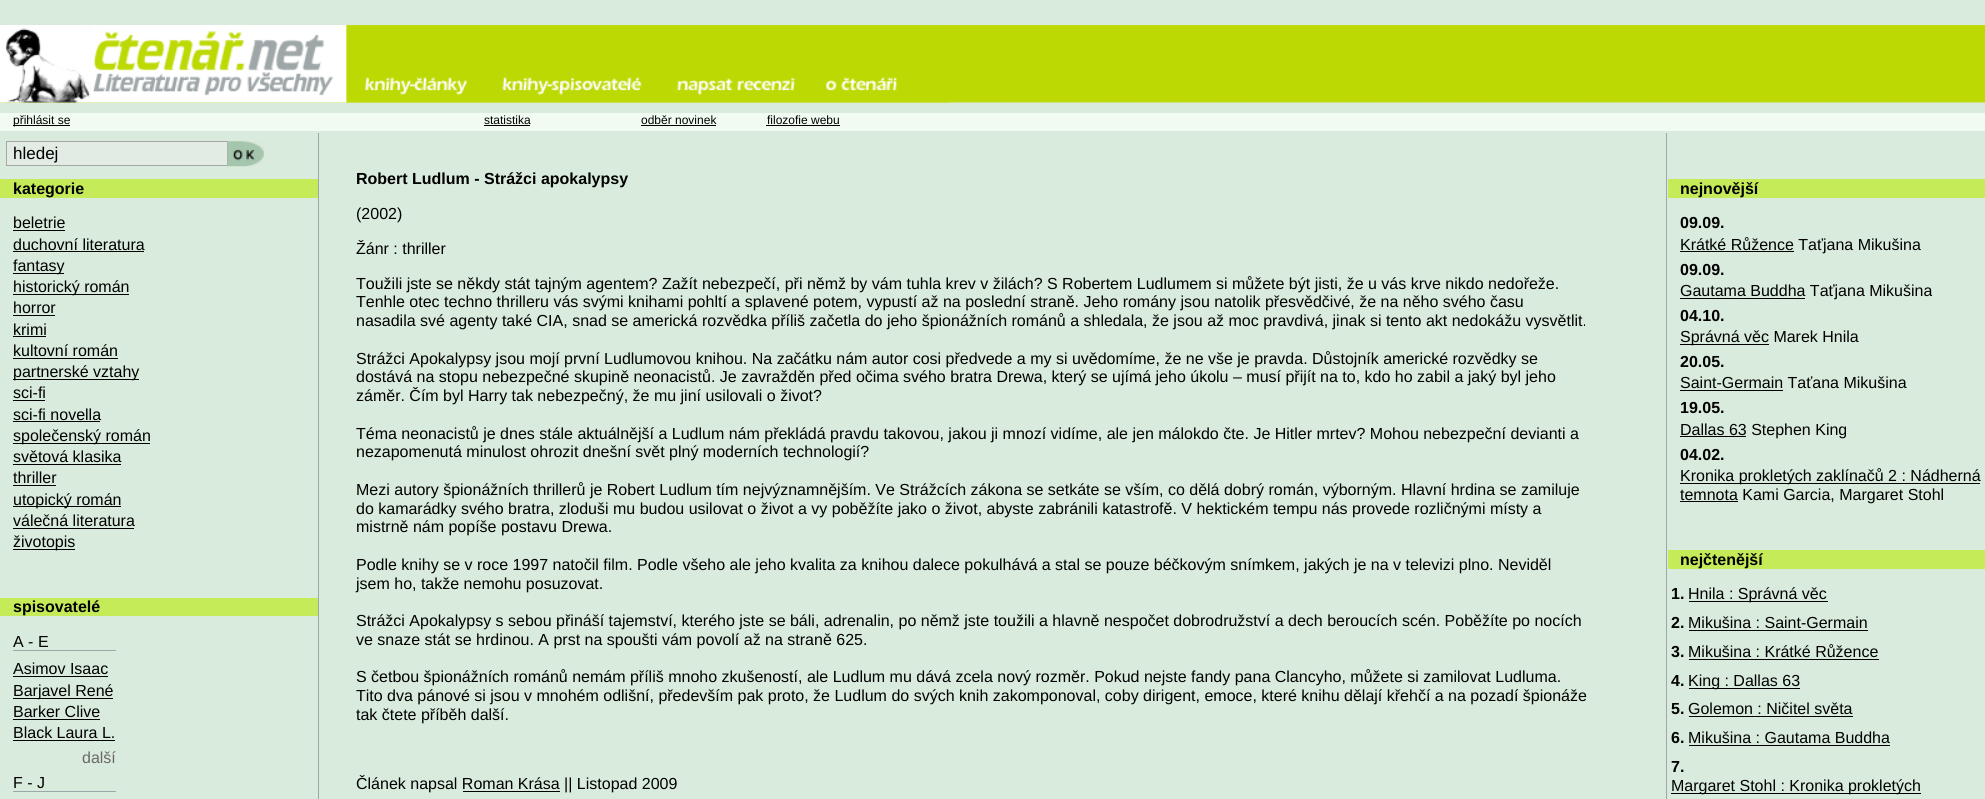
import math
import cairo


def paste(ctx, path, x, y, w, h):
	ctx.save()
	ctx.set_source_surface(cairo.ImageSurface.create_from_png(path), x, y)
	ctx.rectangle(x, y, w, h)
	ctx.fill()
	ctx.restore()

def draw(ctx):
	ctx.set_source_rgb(0.851, 0.918, 0.867)
	ctx.paint()
	paste(ctx, 'media/1.png', 0, 25, 1985, 78)
	paste(ctx, 'media/2.png', 0, 25, 950, 78)
	ctx.set_source_rgb(0.945, 0.984, 0.945)
	ctx.rectangle(0, 113, 1985, 18)
	ctx.fill()
	ctx.set_source_rgb(0, 0, 0)
	ctx.rectangle(13, 125, 57, 1)
	ctx.fill()
	ctx.select_font_face('Liberation Sans')
	ctx.set_font_size(12)
	ctx.move_to(13, 124)
	ctx.show_text('přihlásit se')
	ctx.move_to(484, 124)
	ctx.show_text('statistika')
	ctx.rectangle(484, 125, 46, 1)
	ctx.fill()
	ctx.move_to(641, 124)
	ctx.show_text('odběr novinek')
	ctx.rectangle(641, 125, 75, 1)
	ctx.fill()
	ctx.move_to(767, 124)
	ctx.show_text('filozofie webu')
	ctx.rectangle(766, 125, 74, 1)
	ctx.fill()
	ctx.set_source_rgb(0.616, 0.655, 0.659)
	ctx.rectangle(318, 133, 1, 666)
	ctx.fill()
	ctx.set_source_rgb(0.886, 0.922, 0.894)
	ctx.rectangle(6.5, 141.5, 221, 24)
	ctx.fill_preserve()
	ctx.set_source_rgb(0.651, 0.651, 0.651)
	ctx.set_line_width(1)
	ctx.stroke()
	ctx.set_font_size(17)
	ctx.set_source_rgb(0, 0, 0)
	ctx.move_to(13, 159)
	ctx.show_text('hledej')
	paste(ctx, 'media/3.png', 227, 141, 37, 26)
	ctx.set_source_rgb(0.776, 0.918, 0.349)
	ctx.rectangle(0, 179, 318, 19)
	ctx.fill()
	ctx.select_font_face('Liberation Sans', cairo.FONT_SLANT_NORMAL, cairo.FONT_WEIGHT_BOLD)
	ctx.set_font_size(16)
	ctx.set_source_rgb(0, 0, 0)
	ctx.move_to(13, 194)
	ctx.show_text('kategorie')
	ctx.select_font_face('Liberation Sans')
	ctx.move_to(13, 228)
	ctx.show_text('beletrie')
	ctx.rectangle(13, 230, 52, 1)
	ctx.fill()
	ctx.move_to(13, 250)
	ctx.show_text('duchovní literatura')
	ctx.rectangle(13, 251, 131, 1)
	ctx.fill()
	ctx.rectangle(13, 273, 51, 1)
	ctx.fill()
	ctx.move_to(13, 271)
	ctx.show_text('fantasy')
	ctx.rectangle(13, 294, 116, 1)
	ctx.fill()
	ctx.move_to(13, 292)
	ctx.show_text('historický román')
	ctx.move_to(13, 313)
	ctx.show_text('horror')
	ctx.rectangle(13, 315, 42, 1)
	ctx.fill()
	ctx.move_to(13, 335)
	ctx.show_text('krimi')
	ctx.rectangle(13, 336, 33, 1)
	ctx.fill()
	ctx.move_to(13, 356)
	ctx.show_text('kultovní román')
	ctx.rectangle(13, 358, 105, 1)
	ctx.fill()
	ctx.rectangle(13, 379, 126, 1)
	ctx.fill()
	ctx.move_to(13, 377)
	ctx.show_text('partnerské vztahy')
	ctx.move_to(13, 398)
	ctx.show_text('sci-fi')
	ctx.rectangle(13, 400, 32, 1)
	ctx.fill()
	ctx.move_to(13, 420)
	ctx.show_text('sci-fi novella')
	ctx.rectangle(13, 421, 87, 1)
	ctx.fill()
	ctx.rectangle(13, 443, 137, 1)
	ctx.fill()
	ctx.move_to(13, 441)
	ctx.show_text('společenský román')
	ctx.move_to(13, 462)
	ctx.show_text('světová klasika')
	ctx.rectangle(13, 464, 108, 1)
	ctx.fill()
	ctx.move_to(13, 483)
	ctx.show_text('thriller')
	ctx.rectangle(13, 485, 43, 1)
	ctx.fill()
	ctx.rectangle(13, 506, 108, 1)
	ctx.fill()
	ctx.move_to(13, 505)
	ctx.show_text('utopický román')
	ctx.move_to(13, 526)
	ctx.show_text('válečná literatura')
	ctx.rectangle(13, 528, 121, 1)
	ctx.fill()
	ctx.rectangle(13, 549, 62, 1)
	ctx.fill()
	ctx.move_to(13, 547)
	ctx.show_text('životopis')
	ctx.set_source_rgb(0.776, 0.918, 0.349)
	ctx.rectangle(0, 598, 318, 18)
	ctx.fill()
	ctx.select_font_face('Liberation Sans', cairo.FONT_SLANT_NORMAL, cairo.FONT_WEIGHT_BOLD)
	ctx.set_source_rgb(0, 0, 0)
	ctx.move_to(13, 612)
	ctx.show_text('spisovatelé')
	ctx.set_source_rgb(0.616, 0.655, 0.659)
	ctx.rectangle(13, 650, 103, 1)
	ctx.fill()
	ctx.select_font_face('Liberation Sans')
	ctx.set_source_rgb(0, 0, 0)
	ctx.move_to(13, 647)
	ctx.show_text('A - E')
	ctx.move_to(13, 674)
	ctx.show_text('Asimov Isaac')
	ctx.rectangle(13, 676, 95, 1)
	ctx.fill()
	ctx.rectangle(13, 698, 100, 1)
	ctx.fill()
	ctx.move_to(13, 696)
	ctx.show_text('Barjavel René')
	ctx.move_to(13, 717)
	ctx.show_text('Barker Clive')
	ctx.rectangle(13, 719, 87, 1)
	ctx.fill()
	ctx.move_to(13, 738)
	ctx.show_text('Black Laura L.')
	ctx.rectangle(13, 740, 102, 1)
	ctx.fill()
	ctx.set_source_rgb(0.424, 0.404, 0.404)
	ctx.move_to(82, 763)
	ctx.show_text('další')
	ctx.set_source_rgb(0.616, 0.655, 0.659)
	ctx.rectangle(13, 791, 103, 1)
	ctx.fill()
	ctx.set_source_rgb(0, 0, 0)
	ctx.move_to(13, 788)
	ctx.show_text('F - J')
	ctx.select_font_face('Liberation Sans', cairo.FONT_SLANT_NORMAL, cairo.FONT_WEIGHT_BOLD)
	ctx.move_to(356, 184)
	ctx.show_text('Robert Ludlum - Strážci apokalypsy')
	ctx.select_font_face('Liberation Sans')
	for x, y, s in [
		(356, 219, '(2002)'),
		(356, 254, 'Žánr : thriller'),
		(356, 289, 'Toužili jste se někdy stát tajným agentem? Zažít nebezpečí, při němž by vám tuhla krev v žilách? S Robertem Ludlumem si můžete být jisti, že u vás krve nikdo nedořeže.'),
		(356, 307, 'Tenhle otec techno thrilleru vás svými knihami pohltí a splavené potem, vypustí až na poslední straně. Jeho romány jsou natolik přesvědčivé, že na něho svého času'),
		(356, 326, 'nasadila své agenty také CIA, snad se americká rozvědka příliš začetla do jeho špionážních románů a shledala, že jsou až moc pravdivá, jinak si tento akt nedokážu vysvětlit.'),
		(356, 364, 'Strážci Apokalypsy jsou mojí první Ludlumovou knihou. Na začátku nám autor cosi předvede a my si uvědomíme, že ne vše je pravda. Důstojník americké rozvědky se'),
		(356, 382, 'dostává na stopu nebezpečné skupině neonacistů. Je zavražděn před očima svého bratra Drewa, který se ujímá jeho úkolu – musí přijít na to, kdo ho zabil a jaký byl jeho'),
		(356, 401, 'záměr. Čím byl Harry tak nebezpečný, že mu jiní usilovali o život?'),
		(356, 439, 'Téma neonacistů je dnes stále aktuálnější a Ludlum nám překládá pravdu takovou, jakou ji mnozí vidíme, ale jen málokdo čte. Je Hitler mrtev? Mohou nebezpeční devianti a'),
		(356, 457, 'nezapomenutá minulost ohrozit dnešní svět plný moderních technologií?'),
		(356, 495, 'Mezi autory špionážních thrillerů je Robert Ludlum tím nejvýznamnějším. Ve Strážcích zákona se setkáte se vším, co dělá dobrý román, výborným. Hlavní hrdina se zamiluje'),
		(356, 514, 'do kamarádky svého bratra, zloduši mu budou usilovat o život a vy poběžíte jako o život, abyste zabránili katastrofě. V hektickém tempu nás provede rozličnými místy a'),
		(356, 532, 'mistrně nám popíše postavu Drewa.'),
		(356, 570, 'Podle knihy se v roce 1997 natočil film. Podle všeho ale jeho kvalita za knihou dalece pokulhává a stal se pouze béčkovým snímkem, jakých je na v televizi plno. Neviděl'),
		(356, 589, 'jsem ho, takže nemohu posuzovat.'),
		(356, 626, 'Strážci Apokalypsy s sebou přináší tajemství, kterého jste se báli, adrenalin, po němž jste toužili a hlavně nespočet dobrodružství a dech beroucích scén. Poběžíte po nocích'),
		(356, 645, 've snaze stát se hrdinou. A prst na spoušti vám povolí až na straně 625.'),
		(356, 682, 'S četbou špionážních románů nemám příliš mnoho zkušeností, ale Ludlum mu dává zcela nový rozměr. Pokud nejste fandy pana Clancyho, můžete si zamilovat Ludluma.'),
		(356, 701, 'Tito dva pánové si jsou v mnohém odlišní, především pak proto, že Ludlum do svých knih zakomponoval, coby dirigent, emoce, které knihu dělají křehčí a na pozadí špionáže'),
		(356, 720, 'tak čtete příběh další.'),
		(356, 789, 'Článek napsal Roman Krása || Listopad 2009'),
	]:
		ctx.move_to(x, y)
		ctx.show_text(s)
	ctx.rectangle(463, 791, 97, 1)
	ctx.fill()
	ctx.set_source_rgb(0.616, 0.655, 0.659)
	ctx.rectangle(1666, 133, 1, 666)
	ctx.fill()
	ctx.set_source_rgb(0.776, 0.918, 0.349)
	ctx.rectangle(1668, 179, 317, 19)
	ctx.fill()
	ctx.select_font_face('Liberation Sans', cairo.FONT_SLANT_NORMAL, cairo.FONT_WEIGHT_BOLD)
	ctx.set_source_rgb(0, 0, 0)
	ctx.move_to(1680, 194)
	ctx.show_text('nejnovější')
	ctx.move_to(1680, 228)
	ctx.show_text('09.09.')
	ctx.rectangle(1680, 251, 114, 1)
	ctx.fill()
	ctx.select_font_face('Liberation Sans')
	ctx.move_to(1680, 250)
	ctx.show_text('Krátké Růžence Taťjana Mikušina')
	ctx.select_font_face('Liberation Sans', cairo.FONT_SLANT_NORMAL, cairo.FONT_WEIGHT_BOLD)
	ctx.move_to(1680, 275)
	ctx.show_text('09.09.')
	ctx.rectangle(1680, 298, 125, 1)
	ctx.fill()
	ctx.select_font_face('Liberation Sans')
	ctx.move_to(1680, 296)
	ctx.show_text('Gautama Buddha Taťjana Mikušina')
	ctx.select_font_face('Liberation Sans', cairo.FONT_SLANT_NORMAL, cairo.FONT_WEIGHT_BOLD)
	ctx.move_to(1680, 321)
	ctx.show_text('04.10.')
	ctx.rectangle(1680, 344, 89, 1)
	ctx.fill()
	ctx.select_font_face('Liberation Sans')
	ctx.move_to(1680, 342)
	ctx.show_text('Správná věc Marek Hnila')
	ctx.select_font_face('Liberation Sans', cairo.FONT_SLANT_NORMAL, cairo.FONT_WEIGHT_BOLD)
	ctx.move_to(1680, 367)
	ctx.show_text('20.05.')
	ctx.select_font_face('Liberation Sans')
	ctx.move_to(1680, 388)
	ctx.show_text('Saint-Germain Taťana Mikušina')
	ctx.rectangle(1680, 390, 103, 1)
	ctx.fill()
	ctx.select_font_face('Liberation Sans', cairo.FONT_SLANT_NORMAL, cairo.FONT_WEIGHT_BOLD)
	ctx.move_to(1680, 413)
	ctx.show_text('19.05.')
	ctx.rectangle(1680, 436, 66, 1)
	ctx.fill()
	ctx.select_font_face('Liberation Sans')
	ctx.move_to(1680, 435)
	ctx.show_text('Dallas 63 Stephen King')
	ctx.select_font_face('Liberation Sans', cairo.FONT_SLANT_NORMAL, cairo.FONT_WEIGHT_BOLD)
	ctx.move_to(1680, 460)
	ctx.show_text('04.02.')
	ctx.rectangle(1680, 483, 300, 1)
	ctx.fill()
	ctx.select_font_face('Liberation Sans')
	ctx.move_to(1680, 481)
	ctx.show_text('Kronika prokletých zaklínačů 2 : Nádherná')
	ctx.rectangle(1680, 501, 58, 1)
	ctx.fill()
	ctx.move_to(1680, 500)
	ctx.show_text('temnota Kami Garcia, Margaret Stohl')
	ctx.set_source_rgb(0.776, 0.918, 0.349)
	ctx.rectangle(1668, 550, 317, 19)
	ctx.fill()
	ctx.select_font_face('Liberation Sans', cairo.FONT_SLANT_NORMAL, cairo.FONT_WEIGHT_BOLD)
	ctx.set_source_rgb(0, 0, 0)
	ctx.move_to(1680, 565)
	ctx.show_text('nejčtenější')
	ctx.move_to(1671, 599)
	ctx.show_text('1.')
	ctx.rectangle(1689, 601, 139, 1)
	ctx.fill()
	ctx.select_font_face('Liberation Sans')
	ctx.move_to(1688, 599)
	ctx.show_text('Hnila : Správná věc')
	ctx.select_font_face('Liberation Sans', cairo.FONT_SLANT_NORMAL, cairo.FONT_WEIGHT_BOLD)
	ctx.move_to(1671, 628)
	ctx.show_text('2.')
	ctx.select_font_face('Liberation Sans')
	ctx.move_to(1688, 628)
	ctx.show_text('Mikušina : Saint-Germain')
	ctx.rectangle(1689, 630, 179, 1)
	ctx.fill()
	ctx.select_font_face('Liberation Sans', cairo.FONT_SLANT_NORMAL, cairo.FONT_WEIGHT_BOLD)
	ctx.move_to(1671, 657)
	ctx.show_text('3.')
	ctx.select_font_face('Liberation Sans')
	ctx.move_to(1688, 657)
	ctx.show_text('Mikušina : Krátké Růžence')
	ctx.rectangle(1689, 659, 190, 1)
	ctx.fill()
	ctx.select_font_face('Liberation Sans', cairo.FONT_SLANT_NORMAL, cairo.FONT_WEIGHT_BOLD)
	ctx.move_to(1671, 686)
	ctx.show_text('4.')
	ctx.rectangle(1689, 688, 111, 1)
	ctx.fill()
	ctx.select_font_face('Liberation Sans')
	ctx.move_to(1688, 686)
	ctx.show_text('King : Dallas 63')
	ctx.select_font_face('Liberation Sans', cairo.FONT_SLANT_NORMAL, cairo.FONT_WEIGHT_BOLD)
	ctx.move_to(1671, 714)
	ctx.show_text('5.')
	ctx.select_font_face('Liberation Sans')
	ctx.move_to(1688, 714)
	ctx.show_text('Golemon : Ničitel světa')
	ctx.rectangle(1689, 716, 164, 1)
	ctx.fill()
	ctx.select_font_face('Liberation Sans', cairo.FONT_SLANT_NORMAL, cairo.FONT_WEIGHT_BOLD)
	ctx.move_to(1671, 743)
	ctx.show_text('6.')
	ctx.select_font_face('Liberation Sans')
	ctx.move_to(1688, 743)
	ctx.show_text('Mikušina : Gautama Buddha')
	ctx.rectangle(1689, 745, 201, 1)
	ctx.fill()
	ctx.select_font_face('Liberation Sans', cairo.FONT_SLANT_NORMAL, cairo.FONT_WEIGHT_BOLD)
	ctx.move_to(1671, 772)
	ctx.show_text('7.')
	ctx.rectangle(1671, 793, 250, 1)
	ctx.fill()
	ctx.select_font_face('Liberation Sans')
	ctx.move_to(1671, 791)
	ctx.show_text('Margaret Stohl : Kronika prokletých')


surface = cairo.ImageSurface(cairo.FORMAT_RGB24, 1985, 799)
ctx = cairo.Context(surface)
options = cairo.FontOptions()
options.set_hint_metrics(cairo.HINT_METRICS_OFF)
options.set_hint_style(cairo.HINT_STYLE_NONE)
ctx.set_font_options(options)
ctx.set_miter_limit(4)
draw(ctx)
surface.write_to_png('image.png')
